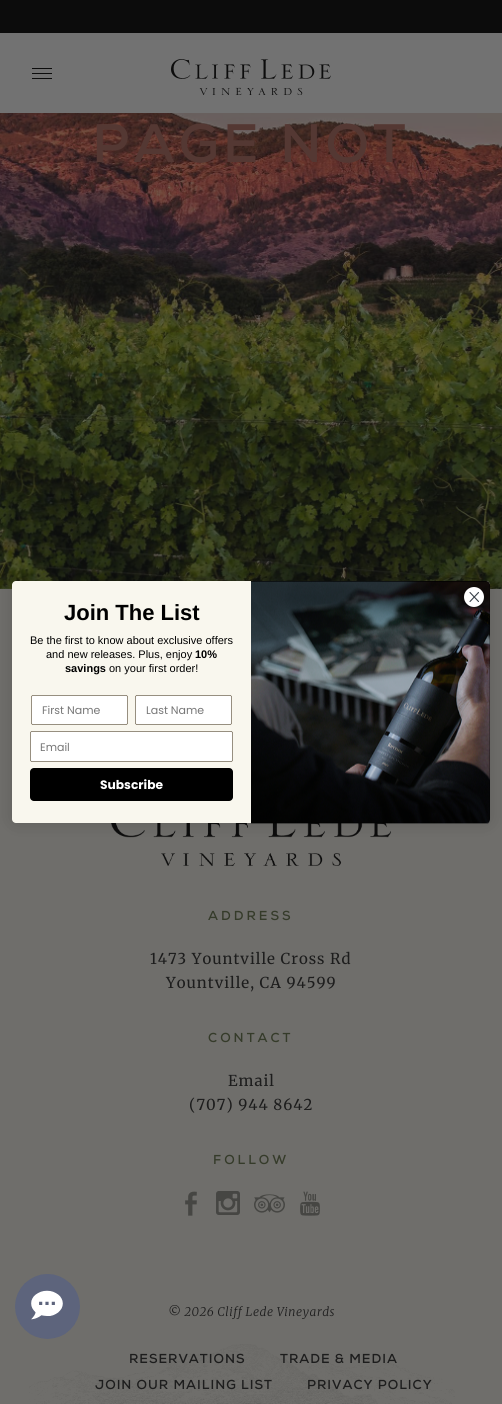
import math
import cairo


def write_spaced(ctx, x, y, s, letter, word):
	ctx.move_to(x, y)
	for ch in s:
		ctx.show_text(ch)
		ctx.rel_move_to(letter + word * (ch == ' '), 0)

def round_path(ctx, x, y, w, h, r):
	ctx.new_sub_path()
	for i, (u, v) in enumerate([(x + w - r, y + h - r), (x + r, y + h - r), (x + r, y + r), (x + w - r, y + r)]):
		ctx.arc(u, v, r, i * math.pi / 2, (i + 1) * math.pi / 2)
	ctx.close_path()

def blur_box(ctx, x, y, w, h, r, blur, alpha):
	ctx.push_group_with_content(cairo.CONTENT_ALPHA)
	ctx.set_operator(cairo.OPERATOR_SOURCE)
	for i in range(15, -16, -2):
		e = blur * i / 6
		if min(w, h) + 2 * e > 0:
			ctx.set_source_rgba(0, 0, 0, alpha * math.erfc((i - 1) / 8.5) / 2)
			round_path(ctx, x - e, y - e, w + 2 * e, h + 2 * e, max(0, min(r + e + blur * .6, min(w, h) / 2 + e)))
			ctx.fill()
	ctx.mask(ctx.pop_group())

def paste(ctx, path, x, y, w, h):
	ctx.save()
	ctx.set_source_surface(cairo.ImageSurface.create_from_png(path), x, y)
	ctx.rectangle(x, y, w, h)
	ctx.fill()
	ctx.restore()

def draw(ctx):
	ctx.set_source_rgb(0.435, 0.431, 0.42)
	ctx.paint()
	ctx.set_source_rgb(0.447, 0.447, 0.447)
	ctx.rectangle(0, 33, 502, 80)
	ctx.fill()
	ctx.set_source_rgb(0.047, 0.047, 0.047)
	ctx.rectangle(0, 0, 502, 33)
	ctx.rectangle(32, 73, 20, 1)
	ctx.rectangle(32, 68, 20, 1)
	ctx.rectangle(32, 78, 20, 1)
	ctx.fill()
	paste(ctx, 'media/1.png', 171, 59, 160, 36)
	paste(ctx, 'media/2.png', 0, 113, 502, 476)
	ctx.select_font_face('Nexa', cairo.FONT_SLANT_NORMAL, cairo.FONT_WEIGHT_BOLD)
	ctx.set_font_size(54)
	ctx.set_source_rgb(0.329, 0.22, 0.2)
	write_spaced(ctx, 92, 162, 'PAGE NOT', 4, 0)
	paste(ctx, 'media/3.png', 29, 1344, 426, 60)
	paste(ctx, 'media/4.png', 111, 823, 280, 43)
	ctx.set_font_size(13)
	ctx.set_source_rgb(0.208, 0.231, 0.165)
	write_spaced(ctx, 208, 920, 'ADDRESS', 3, 0)
	ctx.select_font_face('Merriweather')
	ctx.set_font_size(15)
	ctx.set_source_rgb(0.114, 0.114, 0.114)
	write_spaced(ctx, 150, 964, '1473 Yountville Cross Rd', 1, 0)
	write_spaced(ctx, 166, 988, 'Yountville, CA 94599', 1, 0)
	ctx.select_font_face('Nexa', cairo.FONT_SLANT_NORMAL, cairo.FONT_WEIGHT_BOLD)
	ctx.set_font_size(13)
	ctx.set_source_rgb(0.208, 0.231, 0.165)
	write_spaced(ctx, 208, 1042, 'CONTACT', 3, 0)
	ctx.select_font_face('Merriweather')
	ctx.set_font_size(15)
	ctx.set_source_rgb(0.114, 0.114, 0.114)
	write_spaced(ctx, 228, 1086, 'Email', 1, 0)
	write_spaced(ctx, 189, 1110, '(707) 944 8642', 1, 0)
	ctx.select_font_face('Nexa', cairo.FONT_SLANT_NORMAL, cairo.FONT_WEIGHT_BOLD)
	ctx.set_font_size(13)
	ctx.set_source_rgb(0.208, 0.231, 0.165)
	write_spaced(ctx, 213, 1164, 'FOLLOW', 3, 0)
	paste(ctx, 'media/5.png', 185, 1191, 12, 25)
	paste(ctx, 'media/6.png', 216, 1191, 24, 24)
	paste(ctx, 'media/7.png', 254, 1194, 31, 19)
	paste(ctx, 'media/8.png', 300, 1191, 20, 25)
	ctx.select_font_face('Merriweather Light', cairo.FONT_SLANT_ITALIC)
	ctx.set_font_size(12)
	ctx.set_source_rgb(0.114, 0.114, 0.114)
	write_spaced(ctx, 168, 1316, '© 2026 Cliff Lede Vineyards', 0.5, 0)
	ctx.select_font_face('Nexa', cairo.FONT_SLANT_NORMAL, cairo.FONT_WEIGHT_BOLD)
	ctx.set_font_size(13)
	for x, y, s in [
		(129, 1363, 'RESERVATIONS'),
		(280, 1363, 'TRADE & MEDIA'),
		(95, 1389, 'JOIN OUR MAILING LIST'),
		(307, 1389, 'PRIVACY POLICY'),
	]:
		write_spaced(ctx, x, y, s, 1, 0)
	ctx.set_source_rgb(0, 0, 0)
	blur_box(ctx, 12, 581, 478, 242, 4, 9, 0.15)
	ctx.set_source_rgb(0.973, 0.965, 0.933)
	round_path(ctx, 12, 581, 478, 242, 4)
	ctx.fill()
	ctx.set_source_rgb(0, 0, 0)
	ctx.new_path()
	ctx.move_to(251, 581)
	ctx.line_to(486, 581)
	ctx.curve_to(488, 581, 490, 583, 490, 585)
	ctx.line_to(490, 819)
	ctx.curve_to(490, 821, 488, 823, 486, 823)
	ctx.line_to(251, 823)
	ctx.close_path()
	ctx.fill()
	paste(ctx, 'media/9.png', 251, 581, 239, 243)
	ctx.set_source_rgb(1, 1, 1)
	ctx.arc(474, 597, 10, 0, 2 * math.pi)
	ctx.fill()
	ctx.new_path()
	ctx.move_to(470, 592.5)
	ctx.line_to(478.5, 601.5)
	ctx.move_to(470, 601.5)
	ctx.line_to(478.5, 592.5)
	ctx.close_path()
	ctx.set_source_rgb(0.216, 0.247, 0.278)
	ctx.set_line_width(1.1)
	ctx.set_line_cap(cairo.LINE_CAP_ROUND)
	ctx.set_line_join(cairo.LINE_JOIN_ROUND)
	ctx.stroke()
	ctx.select_font_face('Liberation Sans', cairo.FONT_SLANT_NORMAL, cairo.FONT_WEIGHT_BOLD)
	ctx.set_font_size(22)
	ctx.set_source_rgb(0, 0, 0)
	ctx.move_to(64, 620)
	ctx.show_text('Join The List')
	ctx.select_font_face('Liberation Sans')
	ctx.set_font_size(11)
	ctx.move_to(30, 644)
	ctx.show_text('Be the first to know about exclusive offers')
	ctx.move_to(46, 658)
	ctx.show_text('and new releases. Plus, enjoy')
	ctx.select_font_face('Liberation Sans', cairo.FONT_SLANT_NORMAL, cairo.FONT_WEIGHT_BOLD)
	ctx.move_to(195, 658)
	ctx.show_text('10%')
	ctx.move_to(65, 672)
	ctx.show_text('savings')
	ctx.select_font_face('Liberation Sans')
	ctx.move_to(109, 672)
	ctx.show_text('on your first order!')
	ctx.set_source_rgb(1, 1, 1)
	round_path(ctx, 31.3, 695.3, 96.4, 29.4, 2.2)
	ctx.fill_preserve()
	ctx.set_source_rgb(0.329, 0.275, 0.184)
	ctx.set_line_width(0.6)
	ctx.set_line_cap(cairo.LINE_CAP_BUTT)
	ctx.set_line_join(cairo.LINE_JOIN_MITER)
	ctx.stroke()
	ctx.select_font_face('Poppins')
	ctx.set_source_rgb(0.463, 0.463, 0.463)
	ctx.move_to(42, 714)
	ctx.show_text('First Name')
	ctx.set_source_rgb(1, 1, 1)
	round_path(ctx, 135.3, 695.3, 96.4, 29.4, 2.2)
	ctx.fill_preserve()
	ctx.set_source_rgb(0.329, 0.275, 0.184)
	ctx.stroke()
	ctx.set_source_rgb(0.463, 0.463, 0.463)
	ctx.move_to(146, 714)
	ctx.show_text('Last Name')
	ctx.set_source_rgb(1, 1, 1)
	round_path(ctx, 30.3, 731.3, 202.4, 30.4, 2.2)
	ctx.fill_preserve()
	ctx.set_source_rgb(0.329, 0.275, 0.184)
	ctx.stroke()
	ctx.set_source_rgb(0.463, 0.463, 0.463)
	ctx.move_to(40, 751)
	ctx.show_text('Email')
	ctx.set_source_rgb(0, 0, 0)
	round_path(ctx, 30, 768, 203, 33, 4)
	ctx.fill()
	ctx.select_font_face('Poppins', cairo.FONT_SLANT_NORMAL, cairo.FONT_WEIGHT_BOLD)
	ctx.set_font_size(12.25)
	ctx.set_source_rgb(1, 1, 1)
	ctx.move_to(100, 789)
	ctx.show_text('Subscribe')
	paste(ctx, 'media/10.png', 15, 1274, 65, 65)


surface = cairo.ImageSurface(cairo.FORMAT_RGB24, 502, 1404)
ctx = cairo.Context(surface)
options = cairo.FontOptions()
options.set_hint_metrics(cairo.HINT_METRICS_OFF)
options.set_hint_style(cairo.HINT_STYLE_NONE)
ctx.set_font_options(options)
ctx.set_miter_limit(4)
draw(ctx)
surface.write_to_png('image.png')
